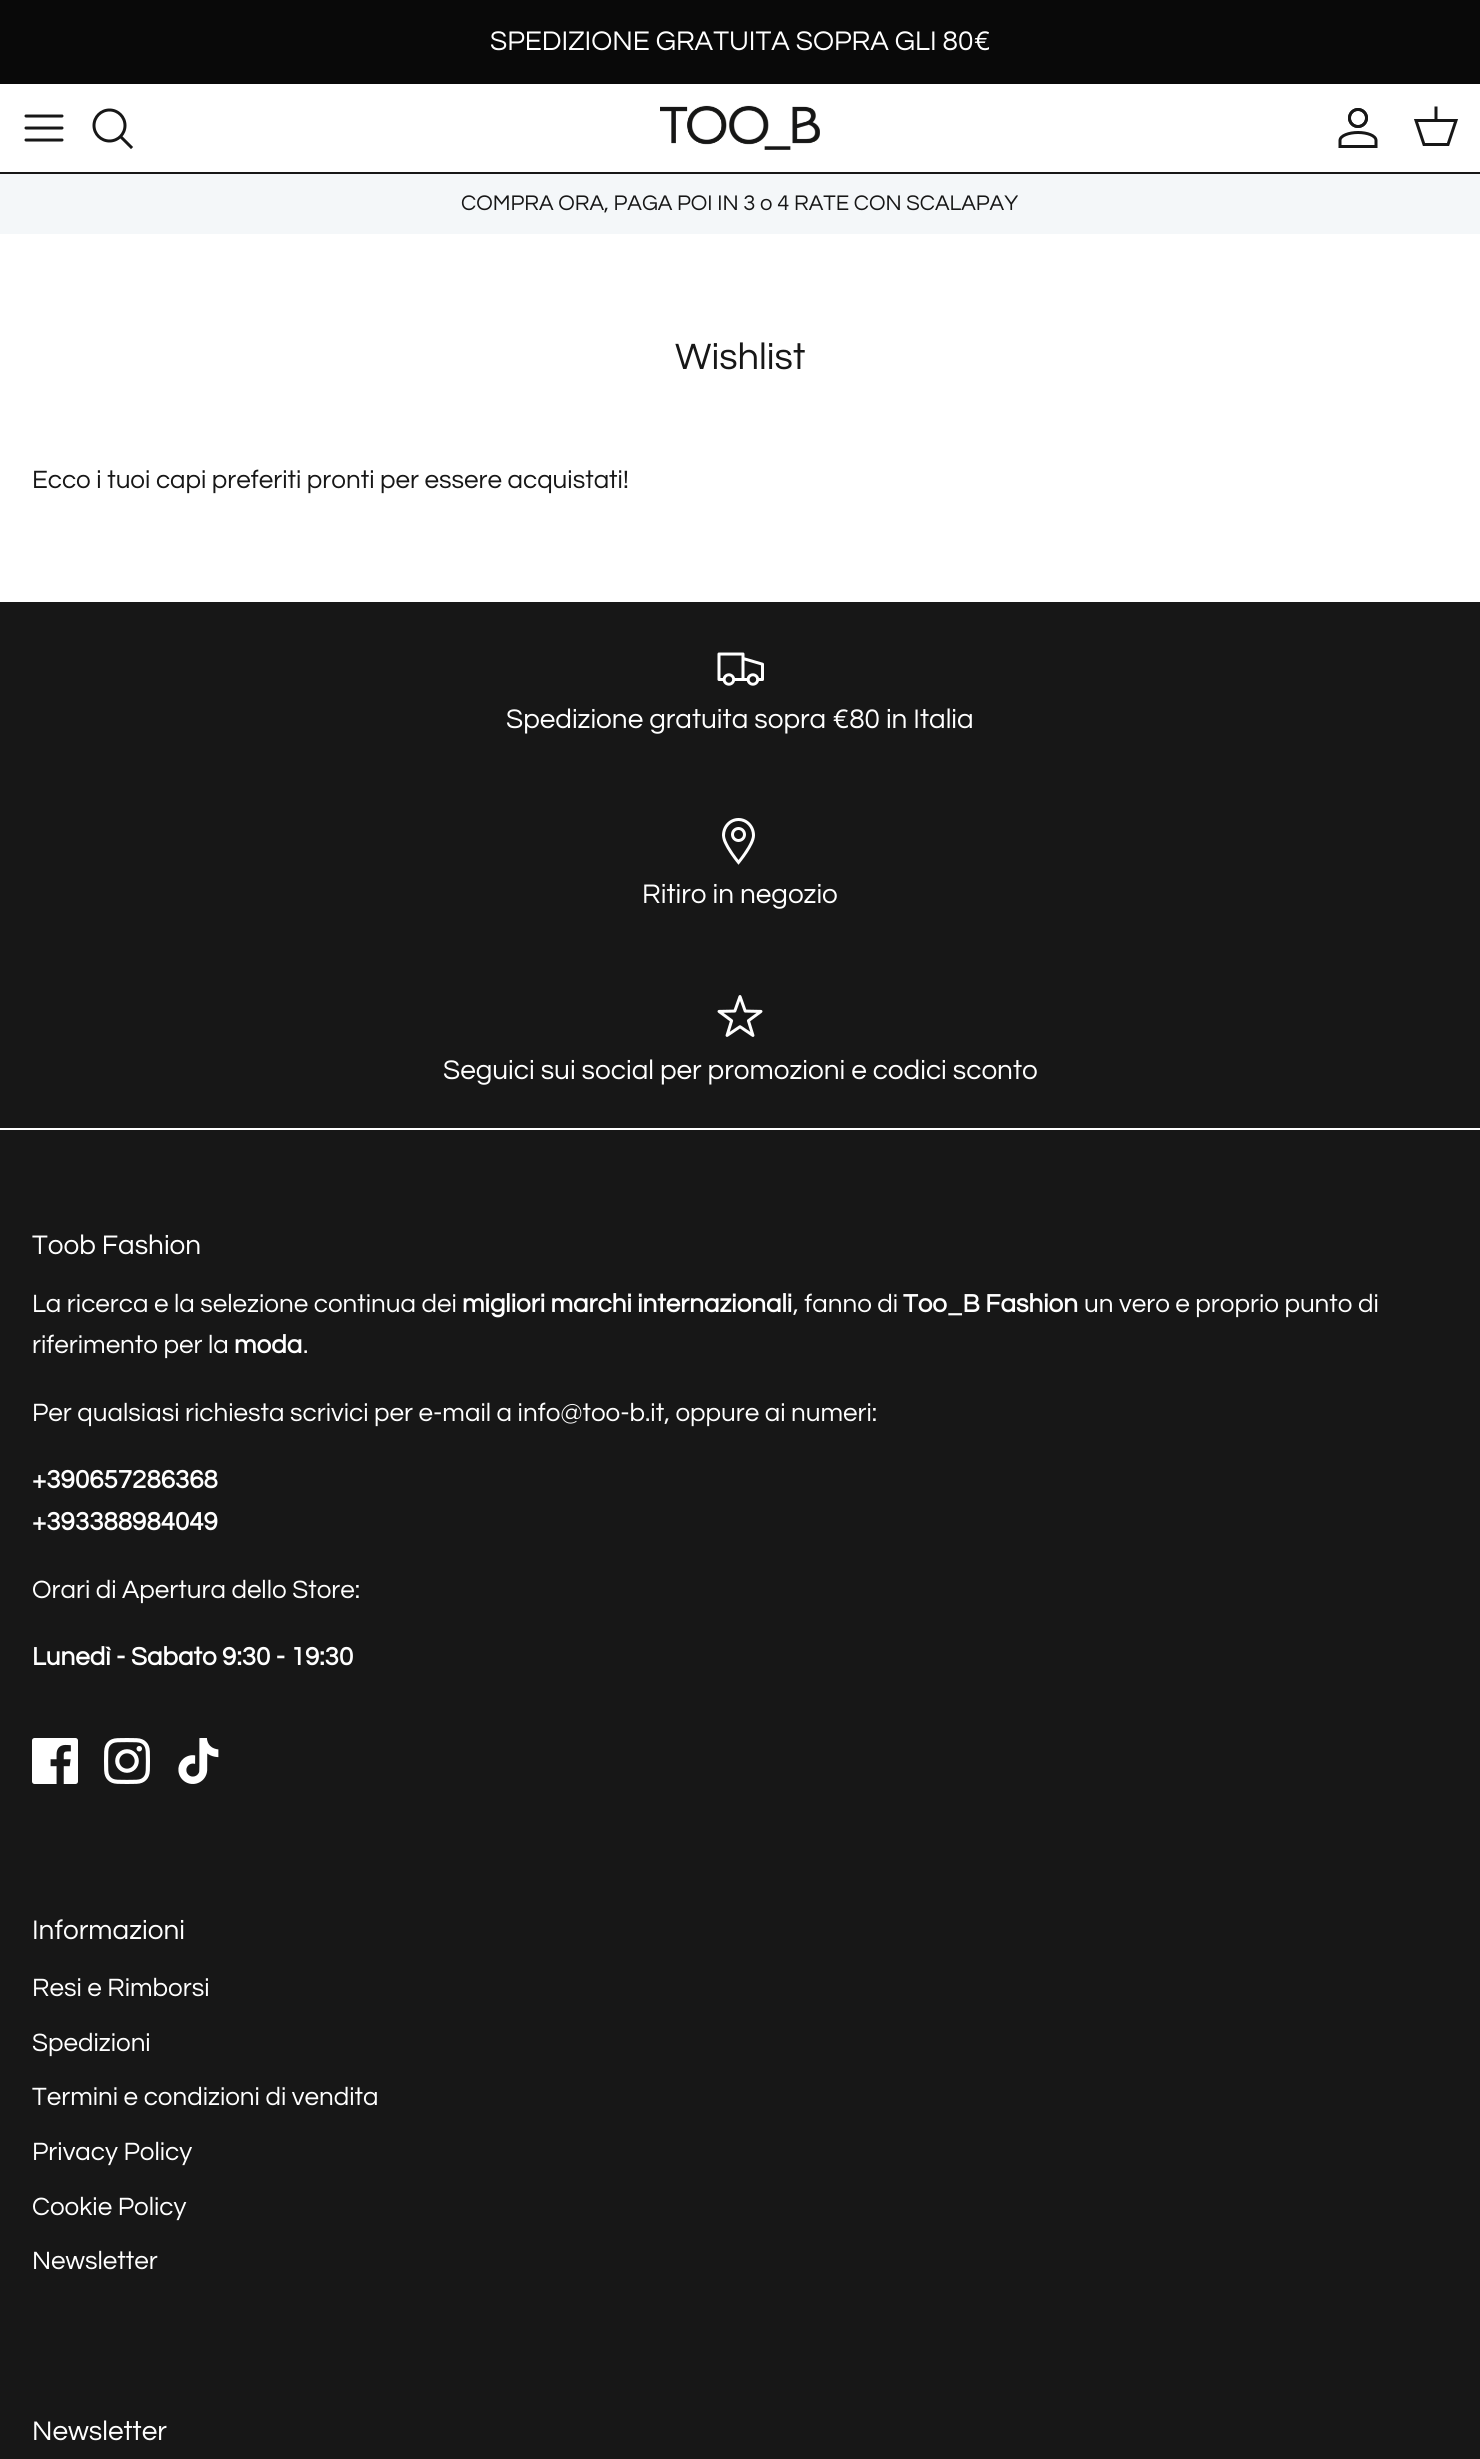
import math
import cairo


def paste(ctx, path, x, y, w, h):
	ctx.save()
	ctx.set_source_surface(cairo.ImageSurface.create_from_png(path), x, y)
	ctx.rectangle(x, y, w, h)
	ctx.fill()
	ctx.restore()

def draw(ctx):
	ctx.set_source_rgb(1, 1, 1)
	ctx.paint()
	ctx.set_source_rgb(0.039, 0.039, 0.039)
	ctx.rectangle(0, 0, 1480, 84)
	ctx.fill()
	ctx.select_font_face('Questrial')
	ctx.set_font_size(28)
	ctx.set_source_rgb(1, 1, 1)
	ctx.move_to(490, 50)
	ctx.show_text('SPEDIZIONE GRATUITA SOPRA GLI 80€')
	ctx.set_source_rgb(0.09, 0.09, 0.09)
	ctx.rectangle(0, 172, 1480, 2)
	ctx.fill()
	ctx.new_path()
	ctx.move_to(26, 128)
	ctx.line_to(62, 128)
	ctx.move_to(26, 116)
	ctx.line_to(62, 116)
	ctx.move_to(26, 140)
	ctx.line_to(62, 140)
	ctx.set_line_width(3)
	ctx.set_line_cap(cairo.LINE_CAP_ROUND)
	ctx.set_line_join(cairo.LINE_JOIN_ROUND)
	ctx.stroke()
	ctx.arc(109.5, 125.5, 15.5, 0, 2 * math.pi)
	ctx.set_line_cap(cairo.LINE_CAP_BUTT)
	ctx.set_line_join(cairo.LINE_JOIN_MITER)
	ctx.stroke()
	ctx.new_path()
	ctx.move_to(122, 138)
	ctx.line_to(131, 147)
	ctx.set_line_cap(cairo.LINE_CAP_SQUARE)
	ctx.stroke()
	paste(ctx, 'media/1.png', 660, 105, 160, 45)
	paste(ctx, 'media/2.png', 1338, 108, 40, 40)
	ctx.new_path()
	ctx.move_to(1416, 120.5)
	ctx.line_to(1456, 120.5)
	ctx.line_to(1448, 144.5)
	ctx.line_to(1424, 144.5)
	ctx.close_path()
	ctx.set_line_cap(cairo.LINE_CAP_BUTT)
	ctx.stroke()
	ctx.new_path()
	ctx.move_to(1436, 120)
	ctx.line_to(1436, 108)
	ctx.set_line_cap(cairo.LINE_CAP_SQUARE)
	ctx.stroke()
	ctx.set_source_rgb(0.957, 0.965, 0.973)
	ctx.rectangle(0, 174, 1480, 60)
	ctx.fill()
	ctx.set_font_size(22)
	ctx.set_source_rgb(0.09, 0.09, 0.09)
	ctx.move_to(461, 210)
	ctx.show_text('COMPRA ORA, PAGA POI IN 3 o 4 RATE CON SCALAPAY')
	ctx.set_font_size(38)
	ctx.move_to(675, 369)
	ctx.show_text('Wishlist')
	ctx.set_font_size(26)
	ctx.move_to(32, 488)
	ctx.show_text('Ecco i tuoi capi preferiti pronti per essere acquistati!')
	ctx.rectangle(0, 602, 1480, 1857)
	ctx.fill()
	paste(ctx, 'media/3.png', 717, 652, 47, 34)
	ctx.set_font_size(27.9)
	ctx.set_source_rgb(1, 1, 1)
	ctx.move_to(506, 728)
	ctx.show_text('Spedizione gratuita sopra €80 in Italia')
	paste(ctx, 'media/4.png', 722, 818, 33, 47)
	ctx.move_to(642, 903)
	ctx.show_text('Ritiro in negozio')
	paste(ctx, 'media/5.png', 717, 995, 46, 42)
	ctx.move_to(443, 1079)
	ctx.show_text('Seguici sui social per promozioni e codici sconto')
	ctx.rectangle(0, 1128, 1480, 2)
	ctx.fill()
	ctx.move_to(32, 1254)
	ctx.show_text('Toob Fashion')
	ctx.set_font_size(26)
	ctx.move_to(32, 1312)
	ctx.show_text('La ricerca e la selezione continua dei')
	ctx.select_font_face('Questrial', cairo.FONT_SLANT_NORMAL, cairo.FONT_WEIGHT_BOLD)
	ctx.move_to(462, 1312)
	ctx.show_text('migliori marchi internazionali')
	ctx.select_font_face('Questrial')
	ctx.move_to(793, 1312)
	ctx.show_text(', fanno di')
	ctx.select_font_face('Questrial', cairo.FONT_SLANT_NORMAL, cairo.FONT_WEIGHT_BOLD)
	ctx.move_to(903, 1312)
	ctx.show_text('Too_B Fashion')
	ctx.select_font_face('Questrial')
	ctx.move_to(1084, 1312)
	ctx.show_text('un vero e proprio punto di')
	ctx.move_to(32, 1353)
	ctx.show_text('riferimento per la')
	ctx.select_font_face('Questrial', cairo.FONT_SLANT_NORMAL, cairo.FONT_WEIGHT_BOLD)
	ctx.move_to(234, 1353)
	ctx.show_text('moda')
	ctx.select_font_face('Questrial')
	ctx.move_to(303, 1353)
	ctx.show_text('.')
	ctx.move_to(32, 1421)
	ctx.show_text('Per qualsiasi richiesta scrivici per e-mail a info@too-b.it, oppure ai numeri:')
	ctx.select_font_face('Questrial', cairo.FONT_SLANT_NORMAL, cairo.FONT_WEIGHT_BOLD)
	ctx.move_to(32, 1488)
	ctx.show_text('+390657286368')
	ctx.move_to(32, 1530)
	ctx.show_text('+393388984049')
	ctx.select_font_face('Questrial')
	ctx.move_to(32, 1598)
	ctx.show_text('Orari di Apertura dello Store:')
	ctx.select_font_face('Questrial', cairo.FONT_SLANT_NORMAL, cairo.FONT_WEIGHT_BOLD)
	ctx.move_to(32, 1665)
	ctx.show_text('Lunedì - Sabato 9:30 - 19:30')
	paste(ctx, 'media/6.png', 32, 1738, 46, 46)
	paste(ctx, 'media/7.png', 104, 1738, 46, 46)
	paste(ctx, 'media/8.png', 178, 1738, 41, 46)
	ctx.select_font_face('Questrial')
	ctx.set_font_size(27.9)
	ctx.move_to(32, 1939)
	ctx.show_text('Informazioni')
	ctx.set_font_size(26)
	for x, y, s in [
		(32, 1996, 'Resi e Rimborsi'),
		(32, 2051, 'Spedizioni'),
		(32, 2105, 'Termini e condizioni di vendita'),
		(32, 2160, 'Privacy Policy'),
		(32, 2215, 'Cookie Policy'),
		(32, 2269, 'Newsletter'),
	]:
		ctx.move_to(x, y)
		ctx.show_text(s)
	ctx.set_font_size(27.9)
	ctx.move_to(32, 2440)
	ctx.show_text('Newsletter')


surface = cairo.ImageSurface(cairo.FORMAT_RGB24, 1480, 2459)
ctx = cairo.Context(surface)
options = cairo.FontOptions()
options.set_hint_metrics(cairo.HINT_METRICS_OFF)
options.set_hint_style(cairo.HINT_STYLE_NONE)
ctx.set_font_options(options)
ctx.set_miter_limit(4)
draw(ctx)
surface.write_to_png('image.png')
